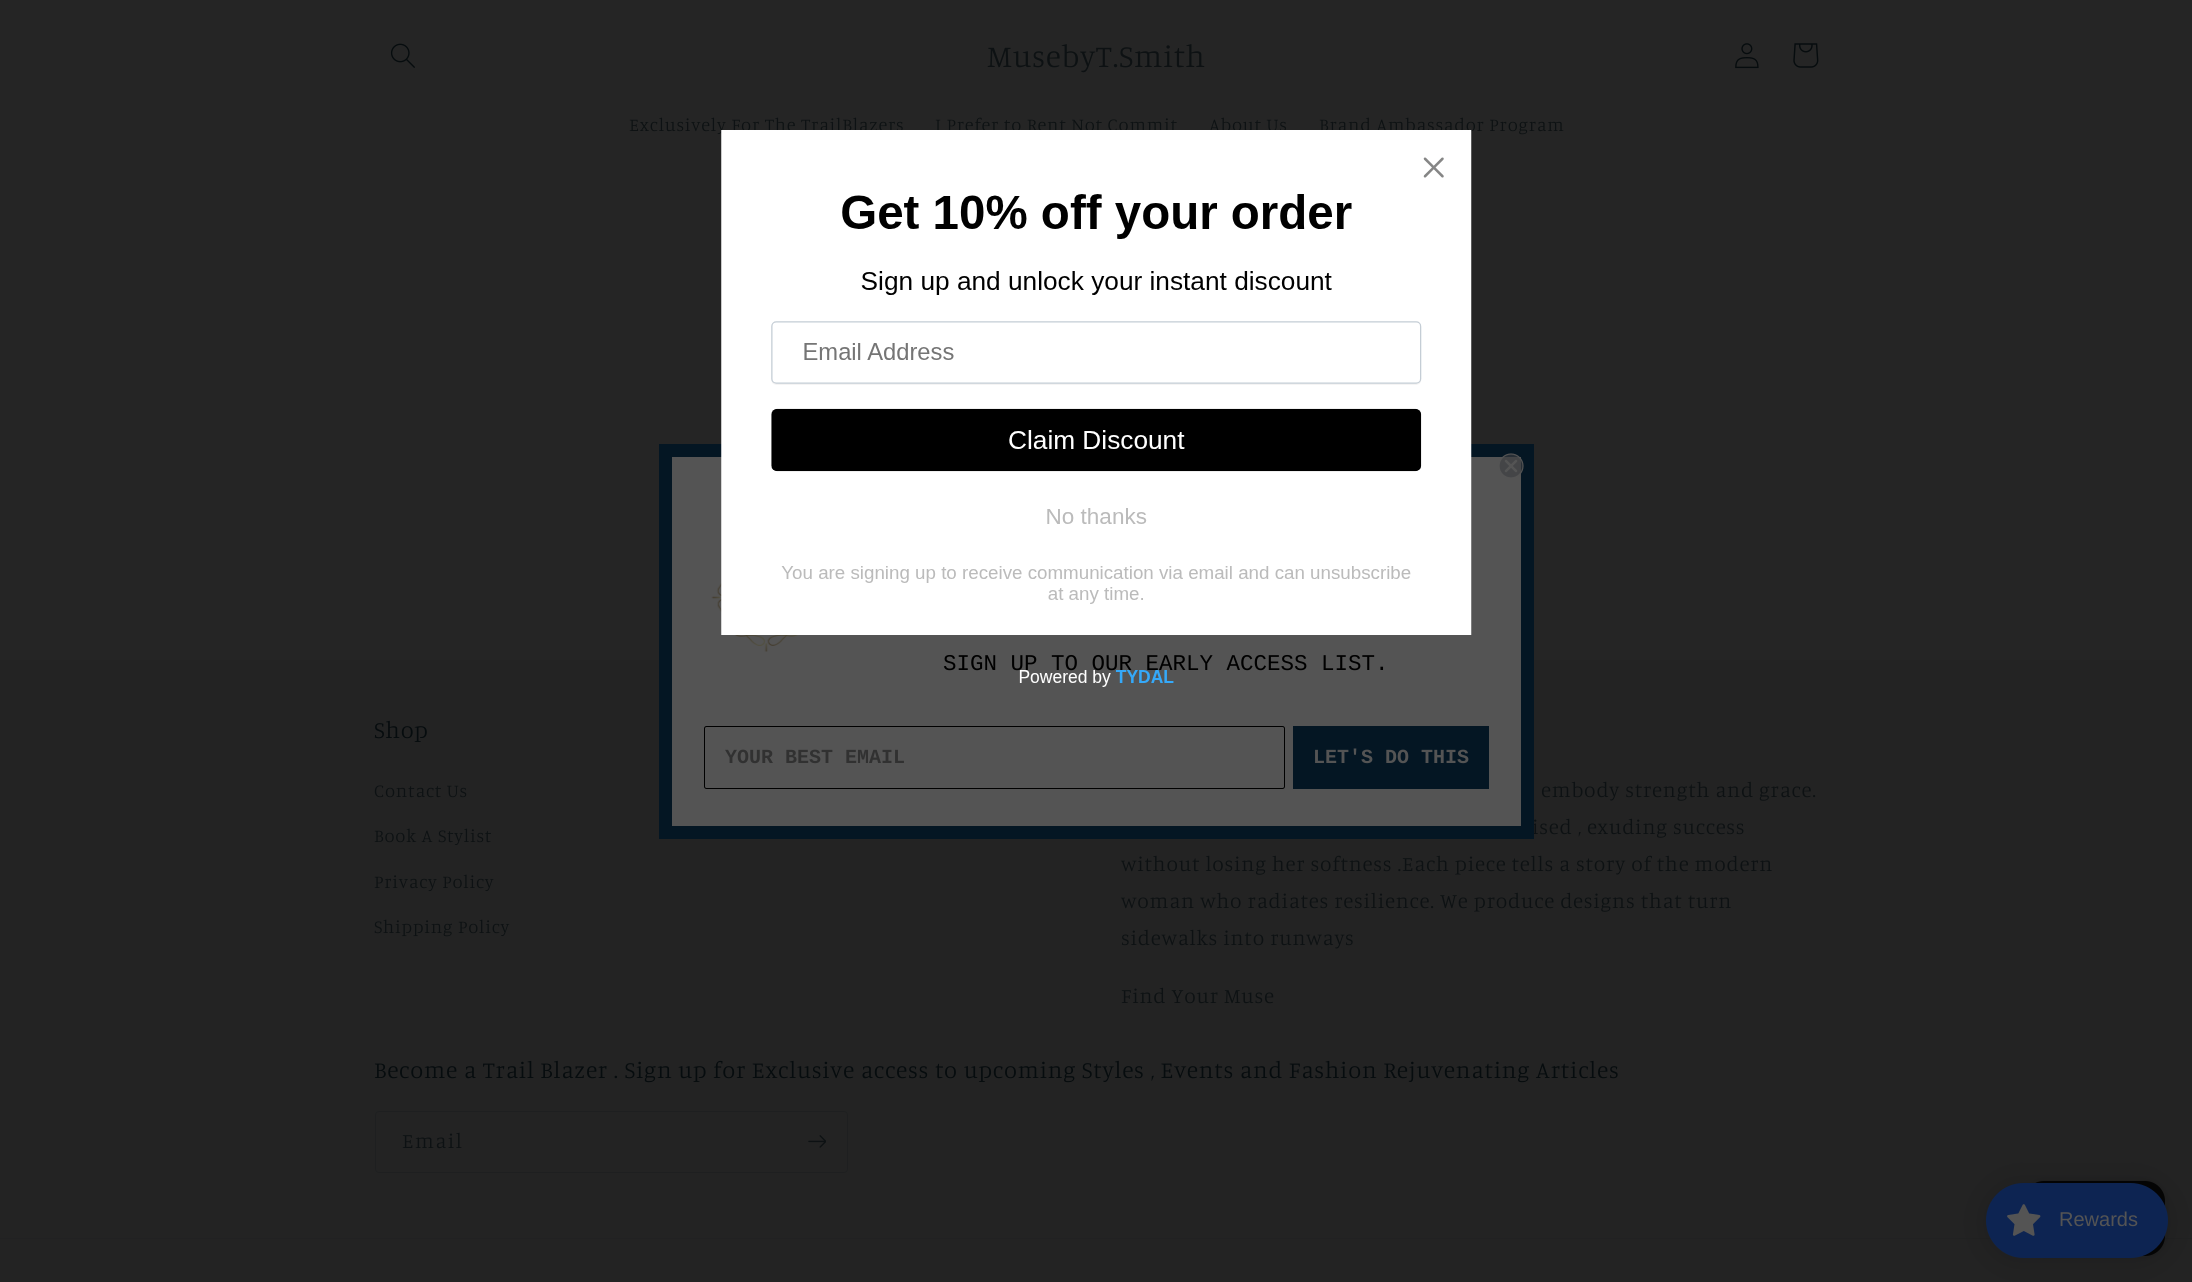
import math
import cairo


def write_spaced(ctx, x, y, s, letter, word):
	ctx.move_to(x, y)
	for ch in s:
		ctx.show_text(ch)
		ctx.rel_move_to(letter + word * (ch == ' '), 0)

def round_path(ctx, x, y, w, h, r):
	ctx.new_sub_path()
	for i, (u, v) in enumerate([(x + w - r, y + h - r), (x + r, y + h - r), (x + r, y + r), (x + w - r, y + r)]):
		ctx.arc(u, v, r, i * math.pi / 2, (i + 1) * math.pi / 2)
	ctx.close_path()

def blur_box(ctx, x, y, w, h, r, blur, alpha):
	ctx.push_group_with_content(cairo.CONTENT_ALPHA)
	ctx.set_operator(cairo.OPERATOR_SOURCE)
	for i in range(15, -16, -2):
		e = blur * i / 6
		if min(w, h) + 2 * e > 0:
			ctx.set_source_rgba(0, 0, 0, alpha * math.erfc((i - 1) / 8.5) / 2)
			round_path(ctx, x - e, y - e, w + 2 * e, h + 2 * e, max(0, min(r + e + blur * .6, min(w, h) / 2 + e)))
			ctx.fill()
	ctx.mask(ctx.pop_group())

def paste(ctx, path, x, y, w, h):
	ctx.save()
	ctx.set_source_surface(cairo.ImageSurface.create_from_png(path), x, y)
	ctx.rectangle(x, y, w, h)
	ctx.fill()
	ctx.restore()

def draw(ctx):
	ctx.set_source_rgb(0.443, 0.443, 0.443)
	ctx.paint()
	paste(ctx, 'media/2.png', 390, 43, 25, 25)
	ctx.select_font_face('Manuale Light')
	ctx.set_font_size(31.5)
	ctx.set_source_rgb(0.157, 0.208, 0.224)
	write_spaced(ctx, 987, 67, 'MusebyT.Smith', 0.79, 0)
	paste(ctx, 'media/3.png', 1735, 43, 24, 26)
	paste(ctx, 'media/4.png', 1793, 43, 26, 25)
	ctx.set_font_size(18.4)
	for x, y, s in [
		(629, 131, 'Exclusively For The TrailBlazers'),
		(935, 131, 'I Prefer to Rent Not Commit'),
		(1209, 131, 'About Us'),
		(1319, 131, 'Brand Ambassador Program'),
	]:
		write_spaced(ctx, x, y, s, 0.79, 0)
	ctx.set_source_rgb(0.416, 0.416, 0.42)
	ctx.rectangle(0, 660, 2192, 622)
	ctx.fill()
	ctx.set_font_size(21)
	ctx.set_source_rgb(0.157, 0.208, 0.224)
	write_spaced(ctx, 1532, 834, 'ised , exuding success', 0.79, 0)
	ctx.set_source_rgb(1, 1, 1)
	ctx.rectangle(665.5, 450.5, 862, 382)
	ctx.fill_preserve()
	ctx.set_source_rgb(0.043, 0.259, 0.42)
	ctx.set_line_width(13)
	ctx.stroke()
	ctx.set_source_rgba(0.706, 0.733, 0.765, 0.65)
	ctx.arc(1511, 466, 12, 0, 2 * math.pi)
	ctx.fill_preserve()
	ctx.set_source_rgb(1, 1, 1)
	ctx.set_line_width(1.2)
	ctx.stroke()
	ctx.new_path()
	ctx.move_to(1506, 461)
	ctx.line_to(1516, 471)
	ctx.move_to(1506, 471)
	ctx.line_to(1516, 461)
	ctx.close_path()
	ctx.set_line_width(2.5)
	ctx.set_line_cap(cairo.LINE_CAP_ROUND)
	ctx.set_line_join(cairo.LINE_JOIN_ROUND)
	ctx.stroke()
	paste(ctx, 'media/5.png', 711, 582, 87, 70)
	ctx.select_font_face('Liberation Mono')
	ctx.set_font_size(22.5)
	ctx.set_source_rgb(0, 0, 0)
	ctx.move_to(943, 670)
	ctx.show_text('SIGN UP TO OUR EARLY ACCESS LIST.')
	round_path(ctx, 704.5, 726.5, 580, 62, 2)
	ctx.set_line_width(1)
	ctx.set_line_cap(cairo.LINE_CAP_BUTT)
	ctx.set_line_join(cairo.LINE_JOIN_MITER)
	ctx.stroke()
	ctx.select_font_face('Liberation Mono', cairo.FONT_SLANT_NORMAL, cairo.FONT_WEIGHT_BOLD)
	ctx.set_font_size(20)
	ctx.set_source_rgb(0.58, 0.584, 0.588)
	ctx.move_to(725, 763)
	ctx.show_text('YOUR BEST EMAIL')
	ctx.set_source_rgb(0.043, 0.259, 0.42)
	ctx.rectangle(1293, 726, 196, 63)
	ctx.fill()
	ctx.set_source_rgb(1, 1, 1)
	ctx.move_to(1313, 763)
	ctx.show_text('LET\'S DO THIS')
	ctx.select_font_face('Manuale Light')
	ctx.set_font_size(23.62)
	ctx.set_source_rgb(0.071, 0.137, 0.161)
	write_spaced(ctx, 374, 738, 'Shop', 0.79, 0)
	ctx.set_font_size(18.4)
	ctx.set_source_rgb(0.157, 0.208, 0.224)
	for x, y, s in [
		(374, 797, 'Contact Us'),
		(374, 842, 'Book A Stylist'),
		(374, 888, 'Privacy Policy'),
		(374, 933, 'Shipping Policy'),
	]:
		write_spaced(ctx, x, y, s, 0.79, 0)
	ctx.set_font_size(21)
	for x, y, s in [
		(1541, 797, 'embody strength and grace.'),
		(1121, 871, 'without losing her softness .Each piece tells a story of the modern'),
		(1121, 908, 'woman who radiates resilience. We produce designs that turn'),
		(1121, 945, 'sidewalks into runways'),
		(1121, 1003, 'Find Your Muse'),
	]:
		write_spaced(ctx, x, y, s, 0.79, 0)
	ctx.set_font_size(23.62)
	ctx.set_source_rgb(0.071, 0.137, 0.161)
	write_spaced(ctx, 374, 1078, 'Become a Trail Blazer . Sign up for Exclusive access to upcoming Styles , Events and Fashion Rejuvenating Articles', 0.79, 0)
	round_path(ctx, 375.5, 1111.5, 472, 61, 3.5)
	ctx.set_source_rgba(0.071, 0.137, 0.161, 0.15)
	ctx.stroke()
	ctx.set_font_size(21)
	ctx.set_source_rgb(0.157, 0.208, 0.224)
	write_spaced(ctx, 402, 1148, 'Email', 1.5, 0)
	paste(ctx, 'media/6.png', 808, 1135, 18, 13)
	ctx.set_source_rgb(0.388, 0.396, 0.4)
	ctx.rectangle(0, 1238, 2192, 1)
	ctx.fill()
	ctx.set_source_rgb(0.047, 0.047, 0.047)
	blur_box(ctx, 2024, 1181, 141, 75, 20, 3, 0.15)
	ctx.set_source_rgb(0.047, 0.047, 0.047)
	round_path(ctx, 2024, 1181, 141, 75, 20)
	ctx.fill()
	ctx.set_source_rgb(0, 0, 0)
	blur_box(ctx, 1986, 1185, 182, 75, 37.5, 19, 0.15)
	ctx.set_source_rgb(0.157, 0.431, 0.973)
	round_path(ctx, 1986, 1183, 182, 75, 37.5)
	ctx.fill()
	paste(ctx, 'media/7.png', 2007, 1204, 34, 32)
	ctx.select_font_face('Liberation Sans')
	ctx.set_font_size(20)
	ctx.set_source_rgb(1, 1, 1)
	ctx.move_to(2059, 1226)
	ctx.show_text('Rewards')
	paste(ctx, 'media/1.png', 0, 0, 2192, 1282)


surface = cairo.ImageSurface(cairo.FORMAT_RGB24, 2192, 1282)
ctx = cairo.Context(surface)
options = cairo.FontOptions()
options.set_hint_metrics(cairo.HINT_METRICS_OFF)
options.set_hint_style(cairo.HINT_STYLE_NONE)
ctx.set_font_options(options)
ctx.set_miter_limit(4)
draw(ctx)
surface.write_to_png('image.png')
